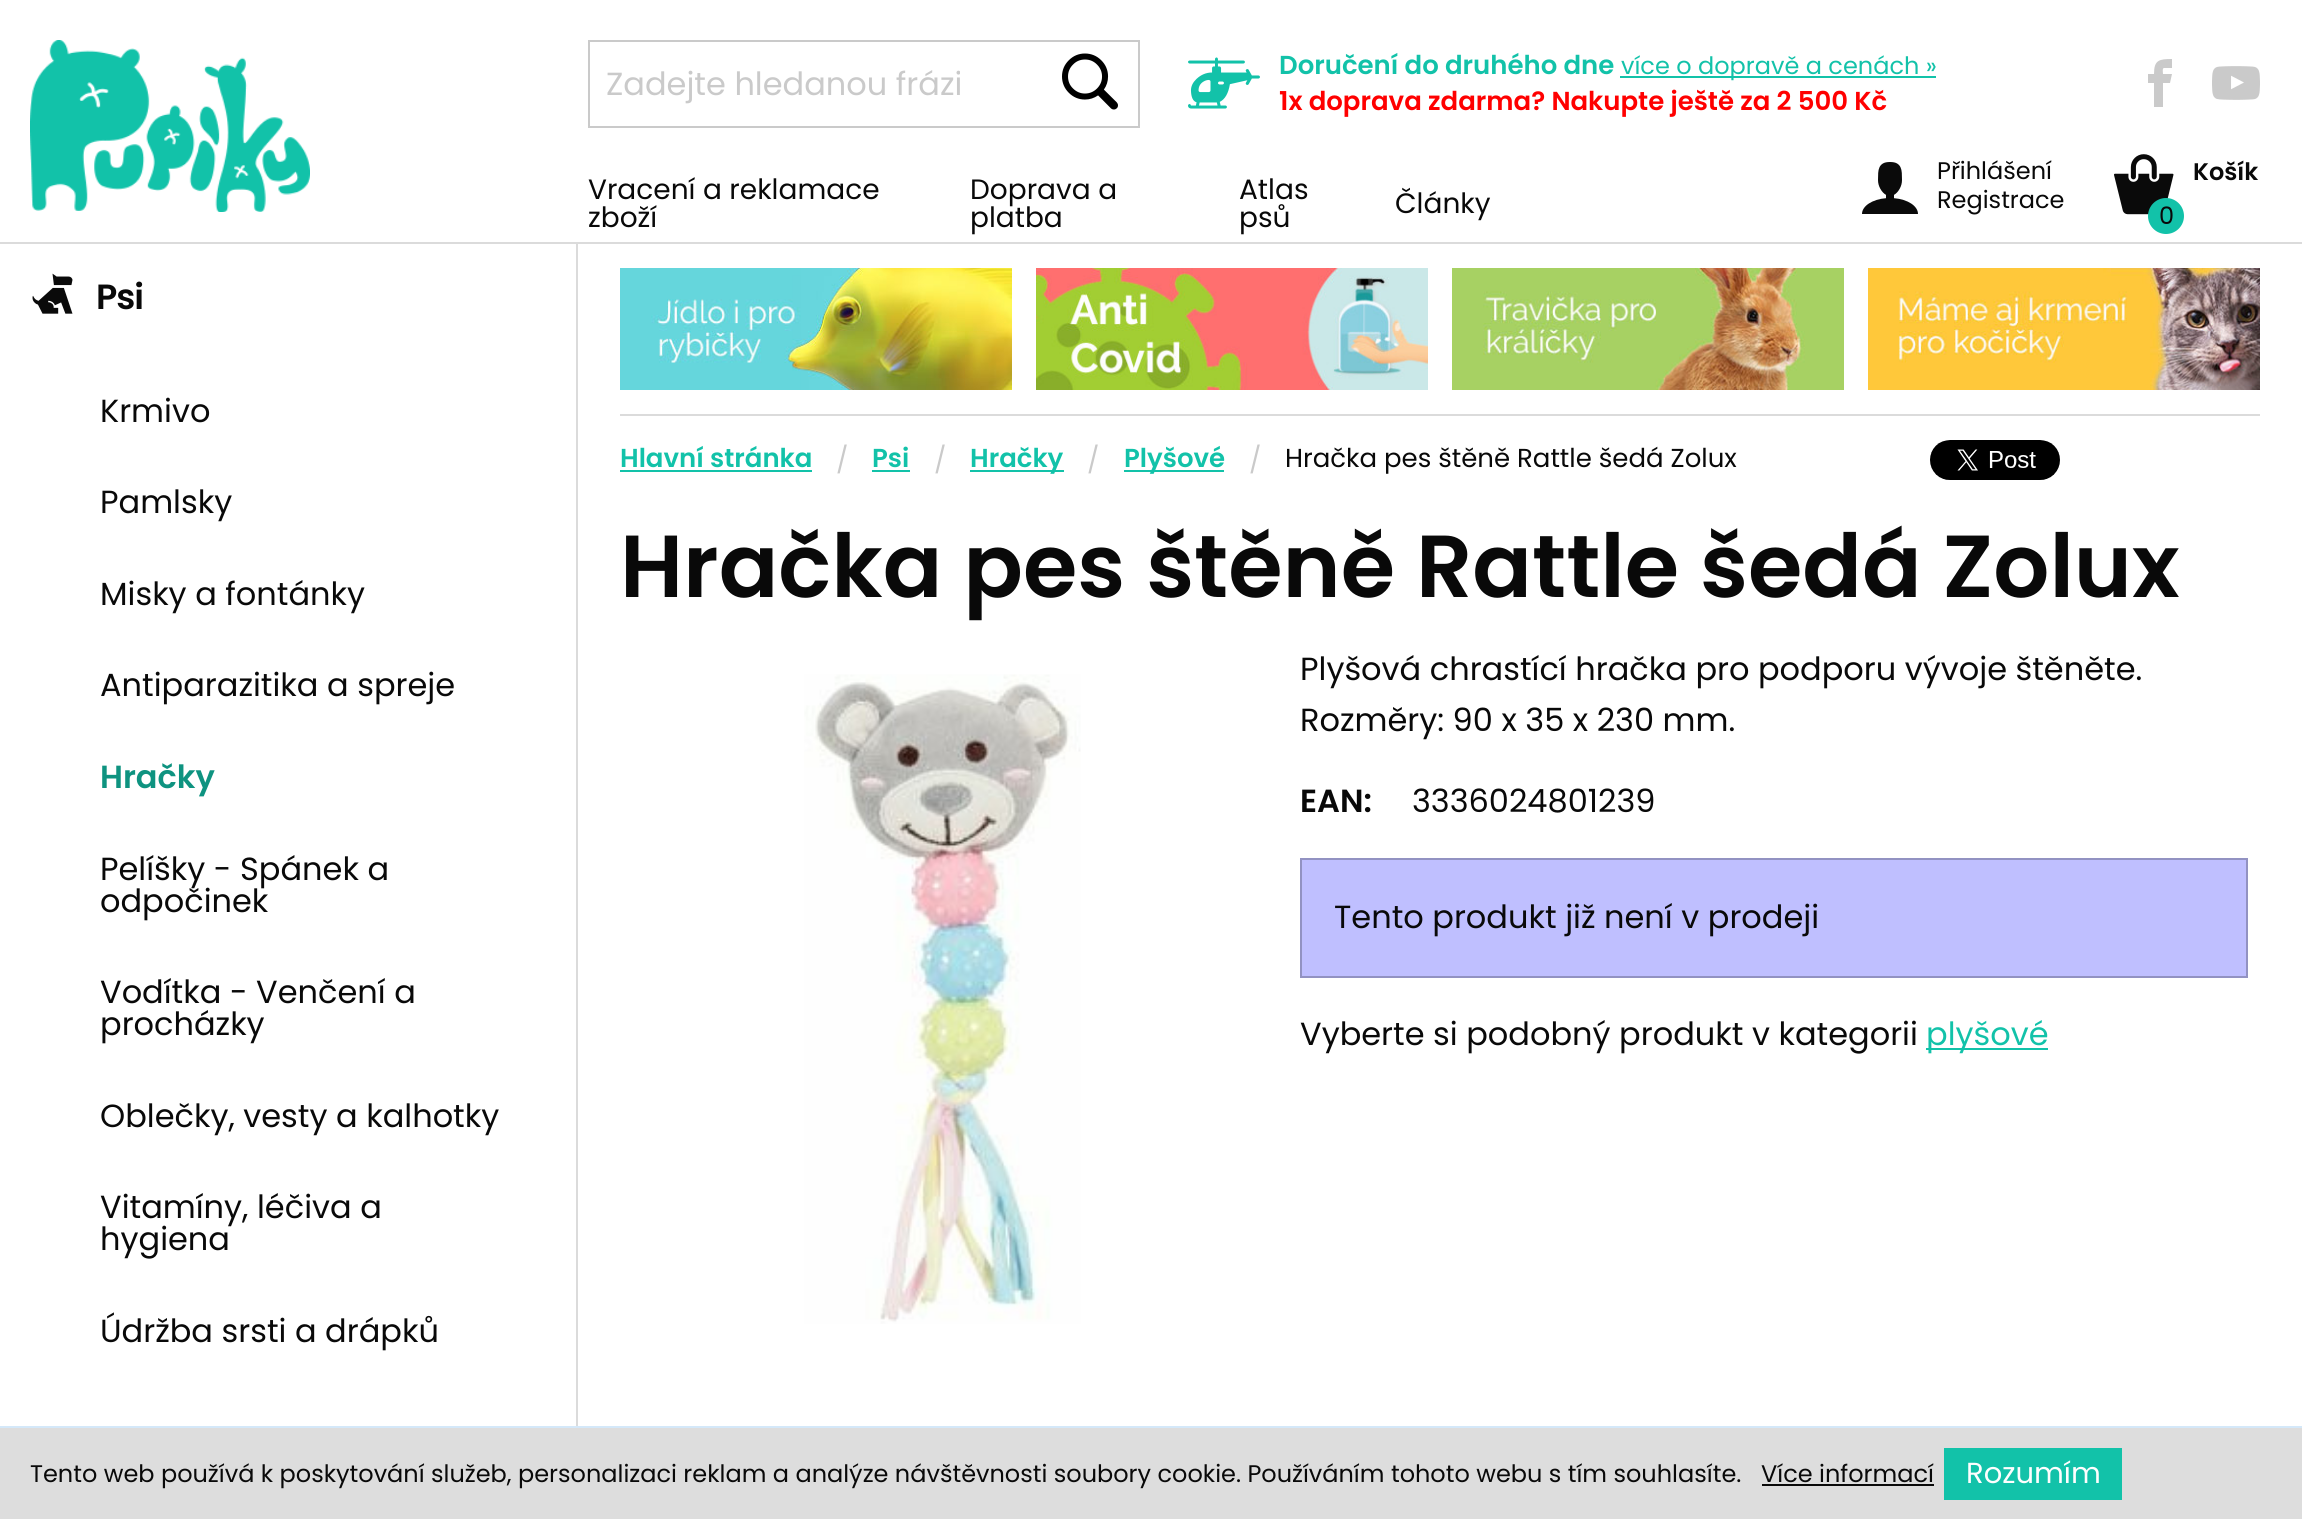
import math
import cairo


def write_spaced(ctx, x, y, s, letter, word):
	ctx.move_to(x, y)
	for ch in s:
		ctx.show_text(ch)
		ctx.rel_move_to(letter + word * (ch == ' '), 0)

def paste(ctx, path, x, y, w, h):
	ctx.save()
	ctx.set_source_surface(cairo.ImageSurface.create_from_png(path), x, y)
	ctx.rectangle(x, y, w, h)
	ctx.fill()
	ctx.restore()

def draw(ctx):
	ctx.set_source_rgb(1, 1, 1)
	ctx.paint()
	ctx.set_source_rgb(0.859, 0.859, 0.859)
	ctx.rectangle(0, 242, 2302, 2)
	ctx.fill()
	paste(ctx, 'media/1.png', 30, 40, 280, 172)
	ctx.set_source_rgb(0.792, 0.792, 0.792)
	ctx.rectangle(588, 40, 552, 2)
	ctx.rectangle(588, 126, 552, 2)
	ctx.rectangle(588, 40, 2, 88)
	ctx.fill()
	ctx.select_font_face('Poppins')
	ctx.set_font_size(32)
	ctx.move_to(606, 95)
	ctx.show_text('Zadejte hledanou frázi')
	ctx.rectangle(1138, 40, 2, 88)
	ctx.fill()
	paste(ctx, 'media/2.png', 1062, 53, 56, 57)
	paste(ctx, 'media/3.png', 1188, 57, 72, 52)
	ctx.select_font_face('Poppins SemiBold')
	ctx.set_font_size(26)
	ctx.set_source_rgb(0.071, 0.761, 0.663)
	ctx.move_to(1279, 74)
	ctx.show_text('Doručení do druhého dne')
	ctx.rectangle(1620, 76, 316, 2)
	ctx.fill()
	ctx.select_font_face('Poppins')
	ctx.set_font_size(24)
	ctx.move_to(1621, 74)
	ctx.show_text('více o dopravě a cenách »')
	ctx.select_font_face('Poppins SemiBold')
	ctx.set_font_size(26)
	ctx.set_source_rgb(1, 0, 0)
	ctx.move_to(1279, 110)
	ctx.show_text('1x doprava zdarma? Nakupte ještě za 2 500 Kč')
	ctx.set_source_rgb(0.792, 0.792, 0.792)
	ctx.new_path()
	ctx.move_to(2164, 68)
	ctx.line_to(2172, 68)
	ctx.line_to(2172, 59)
	ctx.curve_to(2159, 59, 2154, 60, 2154, 74)
	ctx.line_to(2148, 74)
	ctx.line_to(2148, 83)
	ctx.line_to(2154, 83)
	ctx.line_to(2154, 107)
	ctx.line_to(2163, 107)
	ctx.line_to(2163, 83)
	ctx.line_to(2170, 83)
	ctx.line_to(2172, 74)
	ctx.line_to(2163, 74)
	ctx.curve_to(2163, 73, 2162, 68, 2164, 68)
	ctx.close_path()
	ctx.fill()
	paste(ctx, 'media/4.png', 2212, 66, 48, 34)
	ctx.select_font_face('Poppins')
	ctx.set_font_size(28)
	ctx.set_source_rgb(0.039, 0.039, 0.039)
	for x, y, s in [
		(588, 199, 'Vracení a reklamace'),
		(588, 227, 'zboží'),
		(970, 199, 'Doprava a'),
		(970, 227, 'platba'),
		(1239, 199, 'Atlas'),
		(1239, 227, 'psů'),
		(1395, 213, 'Články'),
	]:
		ctx.move_to(x, y)
		ctx.show_text(s)
	paste(ctx, 'media/5.png', 1862, 162, 56, 52)
	ctx.set_font_size(24)
	ctx.move_to(1937, 179)
	ctx.show_text('Přihlášení')
	ctx.move_to(1937, 208)
	ctx.show_text('Registrace')
	paste(ctx, 'media/6.png', 2114, 154, 60, 61)
	ctx.select_font_face('Poppins SemiBold')
	ctx.move_to(2193, 180)
	ctx.show_text('Košík')
	ctx.set_source_rgb(0.071, 0.761, 0.663)
	ctx.new_path()
	ctx.arc(2166, 216, 18, 0, 2 * math.pi)
	ctx.fill()
	ctx.select_font_face('Poppins')
	ctx.set_source_rgb(0.039, 0.039, 0.039)
	ctx.move_to(2159, 224)
	ctx.show_text('0')
	paste(ctx, 'media/7.png', 32, 273, 41, 41)
	ctx.select_font_face('Poppins SemiBold')
	ctx.set_font_size(35)
	write_spaced(ctx, 96, 309, 'Psi', -1, 0)
	ctx.select_font_face('Poppins')
	ctx.set_font_size(32)
	for x, y, s in [
		(100, 422, 'Krmivo'),
		(100, 513, 'Pamlsky'),
		(100, 605, 'Misky a fontánky'),
		(100, 696, 'Antiparazitika a spreje'),
	]:
		ctx.move_to(x, y)
		ctx.show_text(s)
	ctx.select_font_face('Poppins SemiBold')
	ctx.set_source_rgb(0.055, 0.576, 0.502)
	ctx.move_to(100, 788)
	ctx.show_text('Hračky')
	ctx.select_font_face('Poppins')
	ctx.set_source_rgb(0.039, 0.039, 0.039)
	for x, y, s in [
		(100, 880, 'Pelíšky - Spánek a'),
		(100, 912, 'odpočinek'),
		(100, 1003, 'Vodítka - Venčení a'),
		(100, 1035, 'procházky'),
		(100, 1127, 'Oblečky, vesty a kalhotky'),
		(100, 1218, 'Vitamíny, léčiva a'),
		(100, 1250, 'hygiena'),
		(100, 1342, 'Údržba srsti a drápků'),
	]:
		ctx.move_to(x, y)
		ctx.show_text(s)
	ctx.set_source_rgb(0.859, 0.859, 0.859)
	ctx.rectangle(576, 244, 2, 1182)
	ctx.fill()
	paste(ctx, 'media/8.png', 620, 268, 392, 122)
	paste(ctx, 'media/9.png', 1036, 268, 392, 122)
	paste(ctx, 'media/10.png', 1452, 268, 392, 122)
	paste(ctx, 'media/11.png', 1868, 268, 392, 122)
	ctx.rectangle(620, 414, 1640, 2)
	ctx.fill()
	ctx.select_font_face('Poppins SemiBold')
	ctx.set_font_size(26)
	ctx.set_source_rgb(0.071, 0.761, 0.663)
	ctx.move_to(620, 467)
	ctx.show_text('Hlavní stránka')
	ctx.rectangle(620, 470, 192, 2)
	ctx.fill()
	ctx.select_font_face('Poppins')
	ctx.set_source_rgb(0.792, 0.792, 0.792)
	ctx.move_to(836, 469)
	ctx.show_text('/')
	ctx.select_font_face('Poppins SemiBold')
	ctx.set_source_rgb(0.071, 0.761, 0.663)
	ctx.move_to(872, 467)
	ctx.show_text('Psi')
	ctx.rectangle(872, 470, 38, 2)
	ctx.fill()
	ctx.select_font_face('Poppins')
	ctx.set_source_rgb(0.792, 0.792, 0.792)
	ctx.move_to(934, 469)
	ctx.show_text('/')
	ctx.set_source_rgb(0.071, 0.761, 0.663)
	ctx.rectangle(970, 470, 94, 2)
	ctx.fill()
	ctx.select_font_face('Poppins SemiBold')
	ctx.move_to(970, 467)
	ctx.show_text('Hračky')
	ctx.select_font_face('Poppins')
	ctx.set_source_rgb(0.792, 0.792, 0.792)
	ctx.move_to(1087, 469)
	ctx.show_text('/')
	ctx.set_source_rgb(0.071, 0.761, 0.663)
	ctx.rectangle(1124, 470, 100, 2)
	ctx.fill()
	ctx.select_font_face('Poppins SemiBold')
	ctx.move_to(1124, 467)
	ctx.show_text('Plyšové')
	ctx.select_font_face('Poppins')
	ctx.set_source_rgb(0.792, 0.792, 0.792)
	ctx.move_to(1249, 469)
	ctx.show_text('/')
	ctx.set_source_rgb(0.039, 0.039, 0.039)
	ctx.move_to(1285, 467)
	ctx.show_text('Hračka pes štěně Rattle šedá Zolux')
	paste(ctx, 'media/12.png', 1930, 440, 130, 40)
	ctx.select_font_face('Poppins SemiBold')
	ctx.set_font_size(88)
	ctx.move_to(620, 597)
	ctx.show_text('Hračka pes štěně Rattle šedá Zolux')
	paste(ctx, 'media/13.png', 804, 674, 277, 650)
	ctx.select_font_face('Poppins')
	ctx.set_font_size(32)
	ctx.move_to(1300, 680)
	ctx.show_text('Plyšová chrastící hračka pro podporu vývoje štěněte.')
	ctx.move_to(1300, 731)
	ctx.show_text('Rozměry: 90 x 35 x 230 mm.')
	ctx.select_font_face('Poppins SemiBold')
	ctx.move_to(1300, 812)
	ctx.show_text('EAN:')
	ctx.select_font_face('Poppins')
	ctx.move_to(1412, 812)
	ctx.show_text('3336024801239')
	ctx.set_source_rgb(0.749, 0.749, 1)
	ctx.rectangle(1301, 859, 946, 118)
	ctx.fill_preserve()
	ctx.set_source_rgb(0.573, 0.573, 0.761)
	ctx.stroke()
	ctx.set_source_rgb(0.039, 0.039, 0.039)
	ctx.move_to(1334, 928)
	ctx.show_text('Tento produkt již není v prodeji')
	ctx.move_to(1300, 1045)
	ctx.show_text('Vyberte si podobný produkt v kategorii')
	ctx.set_source_rgb(0.071, 0.761, 0.663)
	ctx.rectangle(1926, 1048, 122, 2)
	ctx.fill()
	ctx.move_to(1926, 1045)
	ctx.show_text('plyšové')
	ctx.set_source_rgb(0.867, 0.867, 0.867)
	ctx.rectangle(0, 1428, 2302, 91)
	ctx.fill()
	ctx.set_source_rgb(0.831, 0.91, 0.976)
	ctx.rectangle(0, 1426, 2302, 2)
	ctx.fill()
	ctx.set_font_size(24)
	ctx.set_source_rgb(0.039, 0.039, 0.039)
	ctx.move_to(30, 1482)
	ctx.show_text('Tento web používá k poskytování služeb, personalizaci reklam a analýze návštěvnosti soubory cookie. Používáním tohoto webu s tím souhlasíte.')
	ctx.move_to(1761, 1482)
	ctx.show_text('Více informací')
	ctx.rectangle(1762, 1484, 172, 2)
	ctx.fill()
	ctx.set_source_rgb(0.071, 0.761, 0.663)
	ctx.rectangle(1944, 1448, 178, 52)
	ctx.fill()
	ctx.set_font_size(29)
	ctx.set_source_rgb(0.996, 0.996, 0.996)
	ctx.move_to(1966, 1483)
	ctx.show_text('Rozumím')


surface = cairo.ImageSurface(cairo.FORMAT_RGB24, 2302, 1519)
ctx = cairo.Context(surface)
options = cairo.FontOptions()
options.set_hint_metrics(cairo.HINT_METRICS_OFF)
options.set_hint_style(cairo.HINT_STYLE_NONE)
ctx.set_font_options(options)
ctx.set_miter_limit(4)
draw(ctx)
surface.write_to_png('image.png')
